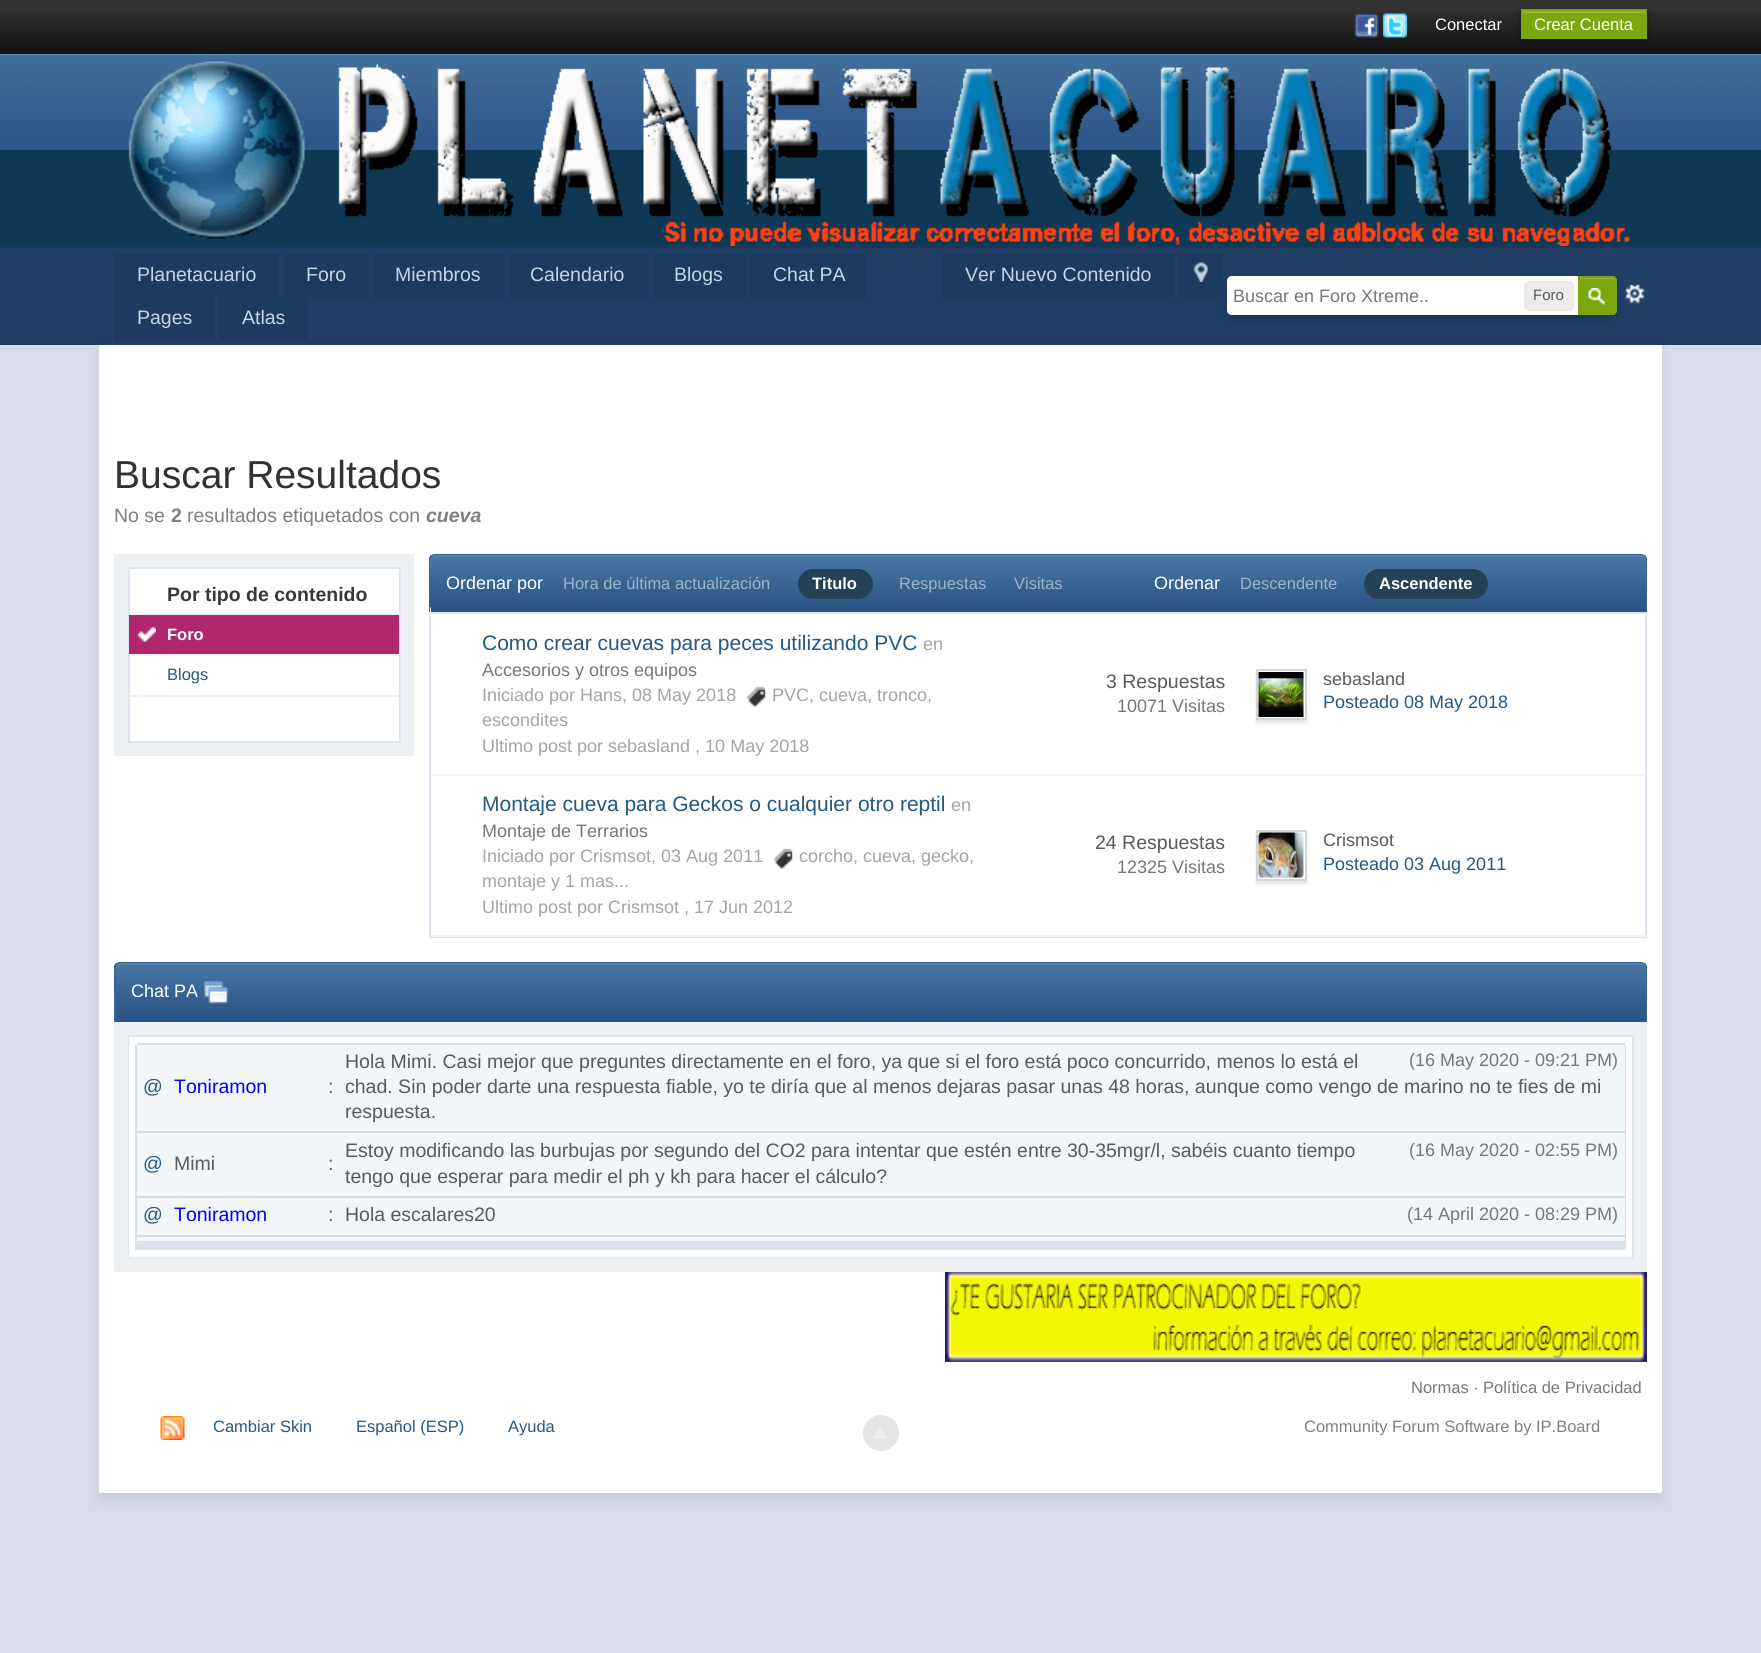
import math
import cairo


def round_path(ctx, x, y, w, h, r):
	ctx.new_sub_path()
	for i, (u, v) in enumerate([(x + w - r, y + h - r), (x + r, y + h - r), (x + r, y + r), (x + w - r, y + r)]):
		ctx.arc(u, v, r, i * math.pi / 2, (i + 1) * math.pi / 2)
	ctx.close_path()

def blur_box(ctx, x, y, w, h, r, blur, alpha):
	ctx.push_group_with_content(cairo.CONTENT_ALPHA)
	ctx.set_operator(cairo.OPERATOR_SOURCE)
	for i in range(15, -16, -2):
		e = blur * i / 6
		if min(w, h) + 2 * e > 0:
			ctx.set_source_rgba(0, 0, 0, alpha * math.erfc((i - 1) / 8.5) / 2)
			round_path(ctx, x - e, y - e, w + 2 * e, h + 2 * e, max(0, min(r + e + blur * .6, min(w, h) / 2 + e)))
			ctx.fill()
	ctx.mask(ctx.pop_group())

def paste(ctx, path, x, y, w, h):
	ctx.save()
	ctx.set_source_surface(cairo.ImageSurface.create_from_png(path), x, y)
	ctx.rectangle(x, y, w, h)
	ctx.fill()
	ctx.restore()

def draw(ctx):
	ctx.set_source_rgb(0.847, 0.867, 0.91)
	ctx.paint()
	ctx.set_source_rgb(0.196, 0.196, 0.196)
	ctx.rectangle(0, 0, 1761, 12)
	ctx.fill()
	paste(ctx, 'media/1.png', 0, 12, 1761, 42)
	paste(ctx, 'media/2.png', 1354, 13, 25, 25)
	paste(ctx, 'media/3.png', 1383, 13, 24, 25)
	ctx.select_font_face('Liberation Sans')
	ctx.set_font_size(16.5)
	ctx.set_source_rgb(1, 1, 1)
	ctx.move_to(1435, 30)
	ctx.show_text('Conectar')
	ctx.set_source_rgb(0, 0, 0)
	blur_box(ctx, 1521, 11, 126, 30, 0, 3, 0.4)
	ctx.set_source_rgb(0.482, 0.651, 0.051)
	ctx.rectangle(1523, 13, 122, 24)
	ctx.fill()
	ctx.set_source_rgb(0.584, 0.722, 0.239)
	ctx.rectangle(1523, 11, 123, 2)
	ctx.fill()
	ctx.rectangle(1522, 10, 124, 28)
	ctx.set_source_rgb(0.482, 0.651, 0.051)
	ctx.stroke()
	ctx.set_source_rgb(1, 1, 1)
	ctx.move_to(1534, 30)
	ctx.show_text('Crear Cuenta')
	ctx.set_source_rgb(0.125, 0.251, 0.4)
	ctx.rectangle(0, 248, 1761, 97)
	ctx.fill()
	ctx.set_source_rgb(0.11, 0.231, 0.373)
	ctx.rectangle(114, 254, 165, 43)
	ctx.fill()
	ctx.set_font_size(19.5)
	ctx.set_source_rgb(0.773, 0.835, 0.886)
	ctx.move_to(137, 281)
	ctx.show_text('Planetacuario')
	ctx.set_source_rgb(0.11, 0.231, 0.373)
	ctx.rectangle(284, 254, 85, 43)
	ctx.fill()
	ctx.set_source_rgb(0.773, 0.835, 0.886)
	ctx.move_to(306, 281)
	ctx.show_text('Foro')
	ctx.set_source_rgb(0.11, 0.231, 0.373)
	ctx.rectangle(374, 254, 130, 43)
	ctx.fill()
	ctx.set_source_rgb(0.773, 0.835, 0.886)
	ctx.move_to(395, 281)
	ctx.show_text('Miembros')
	ctx.set_source_rgb(0.11, 0.231, 0.373)
	ctx.rectangle(509, 254, 139, 43)
	ctx.fill()
	ctx.set_source_rgb(0.773, 0.835, 0.886)
	ctx.move_to(530, 281)
	ctx.show_text('Calendario')
	ctx.set_source_rgb(0.11, 0.231, 0.373)
	ctx.rectangle(653, 254, 93, 43)
	ctx.fill()
	ctx.set_source_rgb(0.773, 0.835, 0.886)
	ctx.move_to(674, 281)
	ctx.show_text('Blogs')
	ctx.set_source_rgb(0.11, 0.231, 0.373)
	ctx.rectangle(750, 254, 117, 43)
	ctx.fill()
	ctx.set_source_rgb(0.773, 0.835, 0.886)
	ctx.move_to(773, 281)
	ctx.show_text('Chat PA')
	ctx.set_source_rgb(0.11, 0.231, 0.373)
	ctx.rectangle(942, 254, 233, 43)
	ctx.fill()
	ctx.set_source_rgb(0.773, 0.835, 0.886)
	ctx.move_to(965, 281)
	ctx.show_text('Ver Nuevo Contenido')
	paste(ctx, 'media/8.png', 1625, 284, 20, 20)
	ctx.set_source_rgb(0, 0, 0)
	blur_box(ctx, 1227, 279, 390, 39, 6, 3, 0.2)
	ctx.set_source_rgb(0.11, 0.231, 0.373)
	ctx.rectangle(1179, 254, 44, 43)
	ctx.fill()
	paste(ctx, 'media/4.png', 1193, 262, 15, 20)
	ctx.set_source_rgb(0, 0, 0)
	blur_box(ctx, 99, 353, 1563, 1147, 0, 7, 0.1)
	ctx.set_source_rgb(0.11, 0.231, 0.373)
	ctx.rectangle(114, 297, 101, 44)
	ctx.fill()
	ctx.set_source_rgb(0.773, 0.835, 0.886)
	ctx.move_to(137, 324)
	ctx.show_text('Pages')
	ctx.set_source_rgb(0.11, 0.231, 0.373)
	ctx.rectangle(219, 297, 89, 44)
	ctx.fill()
	ctx.set_source_rgb(0.773, 0.835, 0.886)
	ctx.move_to(242, 324)
	ctx.show_text('Atlas')
	ctx.set_source_rgb(0.059, 0.22, 0.329)
	ctx.rectangle(0, 150, 1761, 96)
	ctx.fill()
	paste(ctx, 'media/5.png', 0, 54, 1761, 96)
	ctx.set_source_rgb(0.106, 0.216, 0.349)
	ctx.rectangle(0, 246, 1761, 2)
	ctx.fill()
	paste(ctx, 'media/6.png', 128, 61, 1502, 185)
	ctx.set_source_rgb(1, 1, 1)
	ctx.new_path()
	ctx.move_to(1232, 276)
	ctx.line_to(1611, 276)
	ctx.curve_to(1614.5, 276, 1617, 278.5, 1617, 282)
	ctx.line_to(1617, 309)
	ctx.curve_to(1617, 312.5, 1614.5, 315, 1611, 315)
	ctx.line_to(1232, 315)
	ctx.curve_to(1229, 315, 1227, 313, 1227, 310)
	ctx.line_to(1227, 281)
	ctx.curve_to(1227, 278, 1229, 276, 1232, 276)
	ctx.close_path()
	ctx.fill()
	ctx.set_font_size(18)
	ctx.set_source_rgb(0.467, 0.467, 0.467)
	ctx.move_to(1233, 302)
	ctx.show_text('Buscar en Foro Xtreme..')
	ctx.set_source_rgb(0.918, 0.918, 0.918)
	round_path(ctx, 1524, 281, 50, 30, 5)
	ctx.fill()
	ctx.set_font_size(15)
	ctx.set_source_rgb(0.353, 0.353, 0.353)
	ctx.move_to(1533, 300)
	ctx.show_text('Foro')
	ctx.set_source_rgb(0.482, 0.651, 0.051)
	ctx.new_path()
	ctx.move_to(1578, 276)
	ctx.line_to(1612, 276)
	ctx.curve_to(1615, 276, 1617, 278, 1617, 281)
	ctx.line_to(1617, 310)
	ctx.curve_to(1617, 313, 1615, 315, 1612, 315)
	ctx.line_to(1578, 315)
	ctx.close_path()
	ctx.fill()
	paste(ctx, 'media/7.png', 1588, 288, 17, 17)
	ctx.set_source_rgb(0.584, 0.722, 0.239)
	ctx.new_path()
	ctx.move_to(1580, 279)
	ctx.line_to(1612, 279)
	ctx.curve_to(1614, 279, 1616, 280, 1616, 282)
	ctx.line_to(1616, 281)
	ctx.curve_to(1616, 279.5, 1614.5, 278, 1613, 278)
	ctx.line_to(1580, 278)
	ctx.close_path()
	ctx.fill()
	ctx.new_path()
	ctx.move_to(1579, 277)
	ctx.line_to(1612, 277)
	ctx.curve_to(1614, 277, 1616, 279, 1616, 281)
	ctx.line_to(1616, 310)
	ctx.curve_to(1616, 312, 1614, 314, 1612, 314)
	ctx.line_to(1579, 314)
	ctx.close_path()
	ctx.set_source_rgb(0.482, 0.651, 0.051)
	ctx.stroke()
	ctx.set_source_rgb(1, 1, 1)
	ctx.rectangle(99, 345, 1563, 1148)
	ctx.fill()
	ctx.set_font_size(39)
	ctx.set_source_rgb(0.196, 0.196, 0.196)
	ctx.move_to(114, 488)
	ctx.show_text('Buscar Resultados')
	ctx.set_font_size(19.5)
	ctx.set_source_rgb(0.498, 0.498, 0.498)
	ctx.move_to(114, 522)
	ctx.show_text('No se')
	ctx.select_font_face('Liberation Sans', cairo.FONT_SLANT_NORMAL, cairo.FONT_WEIGHT_BOLD)
	ctx.move_to(171, 522)
	ctx.show_text('2')
	ctx.select_font_face('Liberation Sans')
	ctx.move_to(187, 522)
	ctx.show_text('resultados etiquetados con')
	ctx.select_font_face('Liberation Sans', cairo.FONT_SLANT_ITALIC, cairo.FONT_WEIGHT_BOLD)
	ctx.move_to(426, 522)
	ctx.show_text('cueva')
	ctx.set_source_rgb(0.922, 0.941, 0.953)
	ctx.rectangle(114, 554, 300, 202)
	ctx.fill()
	ctx.set_source_rgb(1, 1, 1)
	ctx.rectangle(129, 568, 271, 174)
	ctx.fill_preserve()
	ctx.set_source_rgb(0.859, 0.894, 0.937)
	ctx.stroke()
	ctx.select_font_face('Liberation Sans', cairo.FONT_SLANT_NORMAL, cairo.FONT_WEIGHT_BOLD)
	ctx.set_source_rgb(0.22, 0.22, 0.22)
	ctx.move_to(167, 601)
	ctx.show_text('Por tipo de contenido')
	ctx.set_source_rgb(0.929, 0.945, 0.961)
	ctx.rectangle(129, 614, 270, 1)
	ctx.rectangle(129, 654, 270, 2)
	ctx.fill()
	ctx.set_source_rgb(0.686, 0.157, 0.427)
	ctx.rectangle(129, 615, 270, 39)
	ctx.fill()
	paste(ctx, 'media/9.png', 138, 627, 18, 15)
	ctx.set_font_size(16.5)
	ctx.set_source_rgb(1, 1, 1)
	ctx.move_to(167, 640)
	ctx.show_text('Foro')
	ctx.set_source_rgb(0.929, 0.945, 0.961)
	ctx.rectangle(129, 695, 270, 2)
	ctx.fill()
	ctx.select_font_face('Liberation Sans')
	ctx.set_source_rgb(0.133, 0.349, 0.522)
	ctx.move_to(167, 680)
	ctx.show_text('Blogs')
	ctx.set_source_rgb(0.173, 0.337, 0.529)
	ctx.new_path()
	ctx.move_to(436, 555)
	ctx.line_to(1641, 555)
	ctx.curve_to(1644, 555, 1646, 557, 1646, 560)
	ctx.line_to(1646, 612)
	ctx.line_to(431, 612)
	ctx.line_to(431, 560)
	ctx.curve_to(431, 557, 433, 555, 436, 555)
	ctx.close_path()
	ctx.fill()
	paste(ctx, 'media/10.png', 429, 555, 1218, 53)
	ctx.set_source_rgb(0.322, 0.549, 0.737)
	ctx.new_path()
	ctx.move_to(435, 556)
	ctx.line_to(1641, 556)
	ctx.curve_to(1643, 556, 1646, 559, 1646, 561)
	ctx.line_to(1646, 560)
	ctx.curve_to(1646, 557, 1644, 555, 1641, 555)
	ctx.line_to(436, 555)
	ctx.curve_to(434, 555, 432, 556, 431, 558)
	ctx.curve_to(432, 557, 434, 556, 435, 556)
	ctx.close_path()
	ctx.fill()
	ctx.set_source_rgb(0.192, 0.408, 0.592)
	ctx.set_fill_rule(cairo.FILL_RULE_EVEN_ODD)
	ctx.new_path()
	ctx.move_to(435, 554)
	ctx.line_to(1641, 554)
	ctx.curve_to(1644, 554, 1647, 556, 1647, 560)
	ctx.line_to(1647, 612)
	ctx.line_to(429, 612)
	ctx.line_to(429, 560)
	ctx.curve_to(429, 556, 432, 554, 435, 554)
	ctx.close_path()
	ctx.move_to(435, 555)
	ctx.line_to(1641, 555)
	ctx.curve_to(1643, 555, 1646, 557, 1646, 560)
	ctx.line_to(1646, 612)
	ctx.line_to(430, 612)
	ctx.line_to(430, 560)
	ctx.curve_to(430, 557, 433, 555, 435, 555)
	ctx.close_path()
	ctx.fill()
	ctx.set_font_size(18)
	ctx.set_source_rgb(1, 1, 1)
	ctx.move_to(446, 589)
	ctx.show_text('Ordenar por')
	ctx.set_font_size(16.5)
	ctx.set_source_rgb(0.612, 0.698, 0.788)
	ctx.move_to(563, 589)
	ctx.show_text('Hora de última actualización')
	ctx.set_source_rgb(0.141, 0.255, 0.337)
	round_path(ctx, 798, 569, 75, 30, 15)
	ctx.fill()
	ctx.select_font_face('Liberation Sans', cairo.FONT_SLANT_NORMAL, cairo.FONT_WEIGHT_BOLD)
	ctx.set_source_rgb(1, 1, 1)
	ctx.move_to(812, 589)
	ctx.show_text('Titulo')
	ctx.select_font_face('Liberation Sans')
	ctx.set_source_rgb(0.612, 0.698, 0.788)
	ctx.move_to(899, 589)
	ctx.show_text('Respuestas')
	ctx.move_to(1014, 589)
	ctx.show_text('Visitas')
	ctx.set_font_size(18)
	ctx.set_source_rgb(1, 1, 1)
	ctx.move_to(1154, 589)
	ctx.show_text('Ordenar')
	ctx.set_font_size(16.5)
	ctx.set_source_rgb(0.612, 0.698, 0.788)
	ctx.move_to(1240, 589)
	ctx.show_text('Descendente')
	ctx.set_source_rgb(0.141, 0.255, 0.337)
	round_path(ctx, 1364, 569, 124, 30, 15)
	ctx.fill()
	ctx.select_font_face('Liberation Sans', cairo.FONT_SLANT_NORMAL, cairo.FONT_WEIGHT_BOLD)
	ctx.set_source_rgb(1, 1, 1)
	ctx.move_to(1379, 589)
	ctx.show_text('Ascendente')
	ctx.rectangle(430, 613, 1216, 324)
	ctx.set_source_rgb(0.859, 0.894, 0.937)
	ctx.stroke()
	ctx.select_font_face('Liberation Sans')
	ctx.set_font_size(21)
	ctx.set_source_rgb(0.133, 0.349, 0.522)
	ctx.move_to(482, 650)
	ctx.show_text('Como crear cuevas para peces utilizando PVC')
	ctx.set_font_size(18)
	ctx.set_source_rgb(0.643, 0.643, 0.643)
	ctx.move_to(923, 650)
	ctx.show_text('en')
	ctx.set_source_rgb(0.467, 0.467, 0.467)
	ctx.move_to(482, 676)
	ctx.show_text('Accesorios y otros equipos')
	ctx.set_source_rgb(0.643, 0.643, 0.643)
	ctx.move_to(482, 701)
	ctx.show_text('Iniciado por Hans, 08 May 2018')
	paste(ctx, 'media/11.png', 746, 686, 20, 21)
	for x, y, s in [
		(772, 701, 'PVC, cueva, tronco,'),
		(482, 726, 'escondites'),
		(482, 752, 'Ultimo post por sebasland , 10 May 2018'),
	]:
		ctx.move_to(x, y)
		ctx.show_text(s)
	ctx.set_font_size(19.5)
	ctx.set_source_rgb(0.353, 0.353, 0.353)
	ctx.move_to(1106, 688)
	ctx.show_text('3 Respuestas')
	ctx.set_font_size(18)
	ctx.set_source_rgb(0.467, 0.467, 0.467)
	ctx.move_to(1117, 712)
	ctx.show_text('10071 Visitas')
	ctx.set_source_rgb(0.953, 0.953, 0.953)
	ctx.rectangle(431, 774, 1215, 2)
	ctx.fill()
	ctx.set_source_rgb(0, 0, 0)
	blur_box(ctx, 1256, 672, 51, 51, 0, 1.5, 0.1)
	ctx.set_source_rgb(1, 1, 1)
	ctx.rectangle(1257, 670, 49, 49)
	ctx.fill_preserve()
	ctx.set_source_rgb(0.835, 0.835, 0.835)
	ctx.stroke()
	paste(ctx, 'media/12.png', 1258, 672, 46, 45)
	ctx.set_source_rgb(0.353, 0.353, 0.353)
	ctx.move_to(1323, 685)
	ctx.show_text('sebasland')
	ctx.set_source_rgb(0.133, 0.349, 0.522)
	ctx.move_to(1323, 708)
	ctx.show_text('Posteado 08 May 2018')
	ctx.set_font_size(21)
	ctx.move_to(482, 811)
	ctx.show_text('Montaje cueva para Geckos o cualquier otro reptil')
	ctx.set_font_size(18)
	ctx.set_source_rgb(0.643, 0.643, 0.643)
	ctx.move_to(951, 811)
	ctx.show_text('en')
	ctx.set_source_rgb(0.467, 0.467, 0.467)
	ctx.move_to(482, 837)
	ctx.show_text('Montaje de Terrarios')
	ctx.set_source_rgb(0.643, 0.643, 0.643)
	ctx.move_to(482, 862)
	ctx.show_text('Iniciado por Crismsot, 03 Aug 2011')
	paste(ctx, 'media/13.png', 773, 848, 20, 21)
	for x, y, s in [
		(799, 862, 'corcho, cueva, gecko,'),
		(482, 887, 'montaje y 1 mas...'),
		(482, 913, 'Ultimo post por Crismsot , 17 Jun 2012'),
	]:
		ctx.move_to(x, y)
		ctx.show_text(s)
	ctx.set_font_size(19.5)
	ctx.set_source_rgb(0.353, 0.353, 0.353)
	ctx.move_to(1095, 849)
	ctx.show_text('24 Respuestas')
	ctx.set_font_size(18)
	ctx.set_source_rgb(0.467, 0.467, 0.467)
	ctx.move_to(1117, 873)
	ctx.show_text('12325 Visitas')
	ctx.set_source_rgb(0.953, 0.953, 0.953)
	ctx.rectangle(431, 935, 1215, 2)
	ctx.fill()
	ctx.set_source_rgb(0, 0, 0)
	blur_box(ctx, 1256, 833, 51, 51, 0, 1.5, 0.1)
	ctx.set_source_rgb(1, 1, 1)
	ctx.rectangle(1257, 831, 49, 49)
	ctx.fill_preserve()
	ctx.set_source_rgb(0.835, 0.835, 0.835)
	ctx.stroke()
	paste(ctx, 'media/14.png', 1258, 832, 46, 46)
	ctx.set_source_rgb(0.353, 0.353, 0.353)
	ctx.move_to(1323, 846)
	ctx.show_text('Crismsot')
	ctx.set_source_rgb(0.133, 0.349, 0.522)
	ctx.move_to(1323, 870)
	ctx.show_text('Posteado 03 Aug 2011')
	ctx.set_source_rgb(0.173, 0.337, 0.529)
	ctx.new_path()
	ctx.move_to(121, 963)
	ctx.line_to(1641, 963)
	ctx.curve_to(1644, 963, 1646, 965, 1646, 968)
	ctx.line_to(1646, 1022)
	ctx.line_to(116, 1022)
	ctx.line_to(116, 968)
	ctx.curve_to(116, 965, 118, 963, 121, 963)
	ctx.close_path()
	ctx.fill()
	paste(ctx, 'media/15.png', 114, 963, 1533, 53)
	ctx.set_source_rgb(0.322, 0.549, 0.737)
	ctx.set_fill_rule(cairo.FILL_RULE_WINDING)
	ctx.new_path()
	ctx.move_to(120, 964)
	ctx.line_to(1641, 964)
	ctx.curve_to(1643, 964, 1646, 967, 1646, 969)
	ctx.line_to(1646, 968)
	ctx.curve_to(1646, 965, 1644, 963, 1641, 963)
	ctx.line_to(121, 963)
	ctx.curve_to(118, 963, 116, 965, 116, 968)
	ctx.line_to(116, 969)
	ctx.curve_to(116, 967, 118, 964, 120, 964)
	ctx.close_path()
	ctx.fill()
	ctx.set_source_rgb(0.192, 0.408, 0.592)
	ctx.set_fill_rule(cairo.FILL_RULE_EVEN_ODD)
	ctx.new_path()
	ctx.move_to(120, 962)
	ctx.line_to(1641, 962)
	ctx.curve_to(1644, 962, 1647, 964, 1647, 968)
	ctx.line_to(1647, 1022)
	ctx.line_to(114, 1022)
	ctx.line_to(114, 968)
	ctx.curve_to(114, 964, 117, 962, 120, 962)
	ctx.close_path()
	ctx.move_to(120, 963)
	ctx.line_to(1641, 963)
	ctx.curve_to(1643, 963, 1646, 965, 1646, 968)
	ctx.line_to(1646, 1022)
	ctx.line_to(116, 1022)
	ctx.line_to(116, 968)
	ctx.curve_to(116, 965, 118, 963, 120, 963)
	ctx.close_path()
	ctx.fill()
	ctx.set_source_rgb(1, 1, 1)
	ctx.move_to(131, 997)
	ctx.show_text('Chat PA')
	paste(ctx, 'media/16.png', 204, 981, 24, 23)
	ctx.set_source_rgb(0.922, 0.941, 0.953)
	ctx.rectangle(114, 1022, 1533, 250)
	ctx.fill()
	ctx.rectangle(129, 1036, 1504, 222)
	ctx.set_source_rgb(0.859, 0.894, 0.937)
	ctx.stroke()
	ctx.set_source_rgb(1, 1, 1)
	ctx.rectangle(129, 1037, 1503, 219)
	ctx.fill()
	ctx.set_source_rgb(0.953, 0.953, 0.953)
	ctx.rectangle(129, 1256, 1503, 2)
	ctx.fill()
	ctx.set_source_rgb(0.835, 0.867, 0.898)
	ctx.rectangle(135, 1043, 1491, 2)
	ctx.rectangle(1625, 1043, 1, 198)
	ctx.rectangle(135, 1043, 2, 198)
	ctx.fill()
	ctx.set_source_rgb(0.945, 0.965, 0.976)
	ctx.rectangle(137, 1045, 1488, 86)
	ctx.fill()
	ctx.set_font_size(19.5)
	ctx.set_source_rgb(0.133, 0.349, 0.522)
	ctx.move_to(143, 1093)
	ctx.show_text('@')
	ctx.set_source_rgb(0, 0, 1)
	ctx.move_to(174, 1093)
	ctx.show_text('Toniramon')
	ctx.set_source_rgb(0.353, 0.353, 0.353)
	ctx.move_to(328, 1093)
	ctx.show_text(':')
	ctx.set_source_rgb(0.835, 0.867, 0.898)
	ctx.rectangle(135, 1131, 1491, 2)
	ctx.fill()
	ctx.set_font_size(18)
	ctx.set_source_rgb(0.467, 0.467, 0.467)
	ctx.move_to(1409, 1066)
	ctx.show_text('(16 May 2020 - 09:21 PM)')
	ctx.set_font_size(19.5)
	ctx.set_source_rgb(0.353, 0.353, 0.353)
	for x, y, s in [
		(345, 1068, 'Hola Mimi. Casi mejor que preguntes directamente en el foro, ya que si el foro está poco concurrido, menos lo está el'),
		(345, 1093, 'chad. Sin poder darte una respuesta fiable, yo te diría que al menos dejaras pasar unas 48 horas, aunque como vengo de marino no te fies de mi'),
		(345, 1118, 'respuesta.'),
	]:
		ctx.move_to(x, y)
		ctx.show_text(s)
	ctx.set_source_rgb(0.945, 0.965, 0.976)
	ctx.rectangle(137, 1133, 1488, 63)
	ctx.fill()
	ctx.set_source_rgb(0.133, 0.349, 0.522)
	ctx.move_to(143, 1170)
	ctx.show_text('@')
	ctx.set_source_rgb(0.353, 0.353, 0.353)
	ctx.move_to(174, 1170)
	ctx.show_text('Mimi')
	ctx.move_to(328, 1170)
	ctx.show_text(':')
	ctx.set_source_rgb(0.835, 0.867, 0.898)
	ctx.rectangle(135, 1196, 1491, 2)
	ctx.fill()
	ctx.set_source_rgb(0.353, 0.353, 0.353)
	ctx.move_to(345, 1157)
	ctx.show_text('Estoy modificando las burbujas por segundo del CO2 para intentar que estén entre 30-35mgr/l, sabéis cuanto tiempo')
	ctx.move_to(345, 1183)
	ctx.show_text('tengo que esperar para medir el ph y kh para hacer el cálculo?')
	ctx.set_font_size(18)
	ctx.set_source_rgb(0.467, 0.467, 0.467)
	ctx.move_to(1409, 1156)
	ctx.show_text('(16 May 2020 - 02:55 PM)')
	ctx.set_source_rgb(0.945, 0.965, 0.976)
	ctx.rectangle(137, 1198, 1488, 37)
	ctx.fill()
	ctx.set_font_size(19.5)
	ctx.set_source_rgb(0.133, 0.349, 0.522)
	ctx.move_to(143, 1221)
	ctx.show_text('@')
	ctx.set_source_rgb(0, 0, 1)
	ctx.move_to(174, 1221)
	ctx.show_text('Toniramon')
	ctx.set_source_rgb(0.353, 0.353, 0.353)
	ctx.move_to(328, 1221)
	ctx.show_text(':')
	ctx.set_source_rgb(0.835, 0.867, 0.898)
	ctx.rectangle(135, 1235, 1491, 2)
	ctx.fill()
	ctx.set_source_rgb(0.353, 0.353, 0.353)
	ctx.move_to(345, 1221)
	ctx.show_text('Hola escalares20')
	ctx.set_font_size(18)
	ctx.set_source_rgb(0.467, 0.467, 0.467)
	ctx.move_to(1407, 1220)
	ctx.show_text('(14 April 2020 - 08:29 PM)')
	ctx.set_source_rgb(0.945, 0.965, 0.976)
	ctx.rectangle(137, 1237, 1488, 4)
	ctx.fill()
	ctx.set_source_rgb(0.859, 0.886, 0.925)
	ctx.rectangle(135, 1241, 1491, 9)
	ctx.fill()
	paste(ctx, 'media/17.png', 945, 1272, 702, 90)
	ctx.set_font_size(16.5)
	ctx.set_source_rgb(0.467, 0.467, 0.467)
	ctx.move_to(1411, 1393)
	ctx.show_text('Normas ·')
	ctx.move_to(1483, 1393)
	ctx.show_text('Política de Privacidad')
	paste(ctx, 'media/18.png', 160, 1416, 25, 24)
	ctx.set_source_rgb(0.133, 0.349, 0.522)
	for x, y, s in [
		(213, 1432, 'Cambiar Skin'),
		(356, 1432, 'Español (ESP)'),
		(508, 1432, 'Ayuda'),
	]:
		ctx.move_to(x, y)
		ctx.show_text(s)
	ctx.set_source_rgb(0.898, 0.898, 0.898)
	ctx.new_path()
	ctx.arc(881, 1433, 18, 0, 2 * math.pi)
	ctx.fill()
	paste(ctx, 'media/19.png', 873, 1427, 14, 12)
	ctx.set_source_rgb(0.498, 0.498, 0.498)
	ctx.move_to(1304, 1432)
	ctx.show_text('Community Forum Software by IP.Board')


surface = cairo.ImageSurface(cairo.FORMAT_RGB24, 1761, 1653)
ctx = cairo.Context(surface)
options = cairo.FontOptions()
options.set_hint_metrics(cairo.HINT_METRICS_OFF)
options.set_hint_style(cairo.HINT_STYLE_NONE)
ctx.set_font_options(options)
ctx.set_miter_limit(4)
draw(ctx)
surface.write_to_png('image.png')
